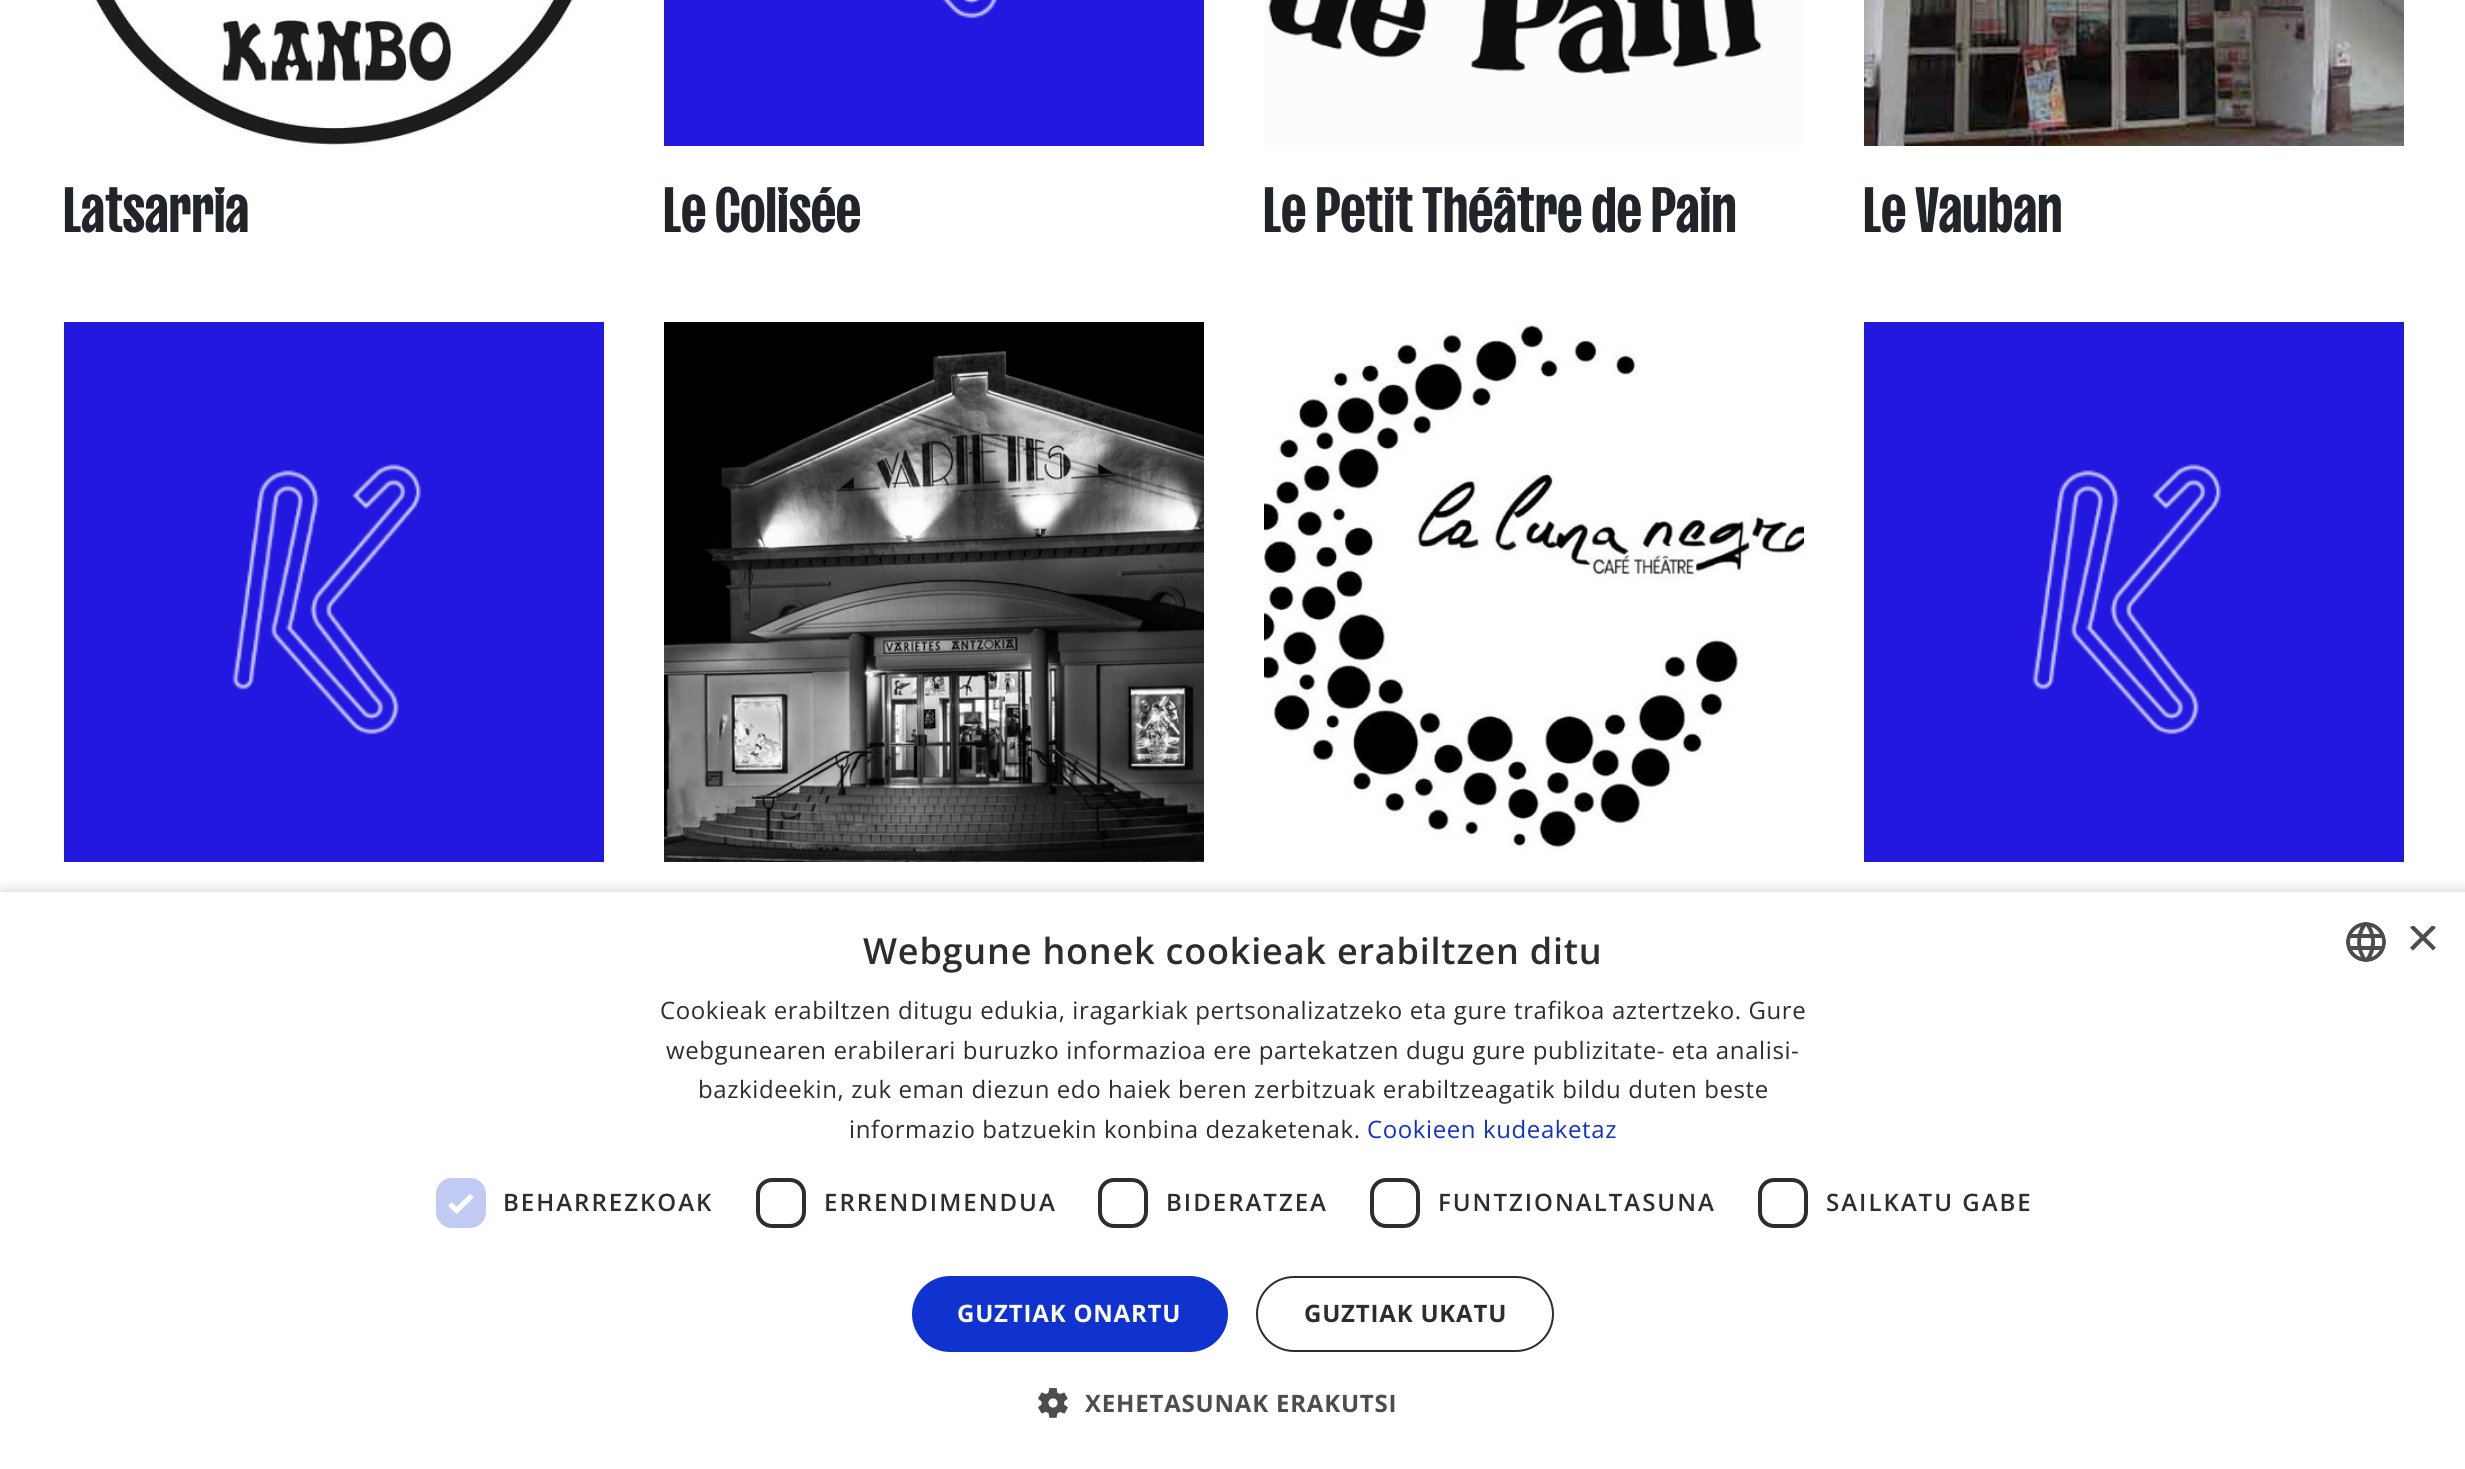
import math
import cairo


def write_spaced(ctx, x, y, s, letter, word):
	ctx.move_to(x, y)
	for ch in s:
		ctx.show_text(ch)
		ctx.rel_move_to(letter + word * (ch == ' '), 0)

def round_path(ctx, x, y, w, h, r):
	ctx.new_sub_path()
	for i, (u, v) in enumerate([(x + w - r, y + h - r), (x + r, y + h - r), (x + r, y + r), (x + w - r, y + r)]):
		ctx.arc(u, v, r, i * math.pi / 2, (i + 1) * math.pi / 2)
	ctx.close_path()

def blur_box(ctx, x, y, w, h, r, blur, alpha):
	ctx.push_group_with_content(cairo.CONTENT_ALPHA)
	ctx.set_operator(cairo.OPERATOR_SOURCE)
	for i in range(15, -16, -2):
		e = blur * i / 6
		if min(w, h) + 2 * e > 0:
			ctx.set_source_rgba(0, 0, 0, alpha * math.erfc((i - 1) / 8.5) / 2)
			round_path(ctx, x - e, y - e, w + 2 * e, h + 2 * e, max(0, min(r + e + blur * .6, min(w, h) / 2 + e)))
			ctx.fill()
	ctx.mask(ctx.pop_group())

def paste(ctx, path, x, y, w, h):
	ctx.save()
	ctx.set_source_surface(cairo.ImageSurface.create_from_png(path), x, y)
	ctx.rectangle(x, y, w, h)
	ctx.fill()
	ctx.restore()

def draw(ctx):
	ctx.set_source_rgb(1, 1, 1)
	ctx.paint()
	paste(ctx, 'media/1.png', 64, 0, 540, 146)
	ctx.select_font_face('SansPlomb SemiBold')
	ctx.set_font_size(64)
	ctx.set_source_rgb(0.129, 0.145, 0.161)
	ctx.move_to(63, 232)
	ctx.show_text('Latsarria')
	paste(ctx, 'media/2.png', 664, 0, 540, 146)
	ctx.move_to(663, 232)
	ctx.show_text('Le Colisée')
	paste(ctx, 'media/3.png', 1264, 0, 540, 146)
	ctx.move_to(1263, 232)
	ctx.show_text('Le Petit Théâtre de Pain')
	paste(ctx, 'media/4.png', 1864, 0, 540, 146)
	ctx.move_to(1863, 232)
	ctx.show_text('Le Vauban')
	paste(ctx, 'media/5.png', 64, 322, 540, 540)
	ctx.set_source_rgb(0, 0, 0)
	ctx.rectangle(664, 322, 540, 28)
	ctx.fill()
	paste(ctx, 'media/6.png', 664, 350, 540, 512)
	paste(ctx, 'media/7.png', 1264, 322, 540, 540)
	paste(ctx, 'media/5.png', 1864, 322, 540, 540)
	ctx.set_source_rgb(0, 0, 0)
	blur_box(ctx, 2, 896, 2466, 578, 0, 8, 0.35)
	ctx.set_source_rgb(1, 1, 1)
	ctx.rectangle(0, 892, 2465, 577)
	ctx.fill()
	ctx.select_font_face('Open Sans SemiBold')
	ctx.set_font_size(36)
	ctx.set_source_rgb(0.176, 0.176, 0.176)
	write_spaced(ctx, 863, 964, 'Webgune honek cookieak erabiltzen ditu', 0.8, 0)
	paste(ctx, 'media/8.png', 2346, 922, 40, 40)
	ctx.save()
	ctx.rectangle(2406, 926, 30, 30)
	ctx.clip()
	ctx.select_font_face('Liberation Sans')
	ctx.set_font_size(58)
	ctx.set_source_rgb(0.302, 0.302, 0.302)
	ctx.move_to(2406, 957)
	ctx.show_text('×')
	ctx.restore()
	ctx.select_font_face('Open Sans')
	ctx.set_font_size(24)
	for x, y, s in [
		(660, 1019, 'Cookieak erabiltzen ditugu edukia, iragarkiak pertsonalizatzeko eta gure trafikoa aztertzeko. Gure'),
		(666, 1059, 'webgunearen erabilerari buruzko informazioa ere partekatzen dugu gure publizitate- eta analisi-'),
		(698, 1098, 'bazkideekin, zuk eman diezun edo haiek beren zerbitzuak erabiltzeagatik bildu duten beste'),
		(849, 1138, 'informazio batzuekin konbina dezaketenak.'),
	]:
		write_spaced(ctx, x, y, s, 0.6, 0)
	ctx.set_source_rgb(0.063, 0.196, 0.812)
	write_spaced(ctx, 1367, 1138, 'Cookieen kudeaketaz', 0.6, 0)
	ctx.set_source_rgb(0.757, 0.792, 0.953)
	round_path(ctx, 436, 1178, 50, 50, 16)
	ctx.fill()
	ctx.new_path()
	ctx.move_to(450, 1204)
	ctx.line_to(456.5, 1210.5)
	ctx.line_to(472, 1195.5)
	ctx.set_source_rgb(1, 1, 1)
	ctx.set_line_width(5.2)
	ctx.stroke()
	ctx.select_font_face('Open Sans SemiBold')
	ctx.set_source_rgb(0.176, 0.176, 0.176)
	write_spaced(ctx, 503, 1211, 'BEHARREZKOAK', 2, 0)
	round_path(ctx, 758, 1180, 46, 46, 14)
	ctx.set_line_width(4)
	ctx.stroke()
	write_spaced(ctx, 824, 1211, 'ERRENDIMENDUA', 2, 0)
	round_path(ctx, 1100, 1180, 46, 46, 14)
	ctx.stroke()
	write_spaced(ctx, 1166, 1211, 'BIDERATZEA', 2, 0)
	round_path(ctx, 1372, 1180, 46, 46, 14)
	ctx.stroke()
	write_spaced(ctx, 1438, 1211, 'FUNTZIONALTASUNA', 2, 0)
	round_path(ctx, 1760, 1180, 46, 46, 14)
	ctx.stroke()
	write_spaced(ctx, 1826, 1211, 'SAILKATU GABE', 2, 0)
	ctx.set_source_rgb(0.063, 0.196, 0.812)
	round_path(ctx, 912, 1276, 316, 76, 38)
	ctx.fill()
	ctx.select_font_face('Open Sans', cairo.FONT_SLANT_NORMAL, cairo.FONT_WEIGHT_BOLD)
	ctx.set_source_rgb(1, 1, 1)
	write_spaced(ctx, 957, 1322, 'GUZTIAK ONARTU', 0.8, 0)
	round_path(ctx, 1257, 1277, 296, 74, 37)
	ctx.set_source_rgb(0.176, 0.176, 0.176)
	ctx.set_line_width(2)
	ctx.stroke()
	write_spaced(ctx, 1304, 1322, 'GUZTIAK UKATU', 0.8, 0)
	paste(ctx, 'media/9.png', 1038, 1388, 30, 30)
	ctx.set_source_rgb(0.302, 0.302, 0.302)
	write_spaced(ctx, 1085, 1412, 'XEHETASUNAK ERAKUTSI', 0.8, 0)


surface = cairo.ImageSurface(cairo.FORMAT_RGB24, 2465, 1469)
ctx = cairo.Context(surface)
options = cairo.FontOptions()
options.set_hint_metrics(cairo.HINT_METRICS_OFF)
options.set_hint_style(cairo.HINT_STYLE_NONE)
ctx.set_font_options(options)
ctx.set_miter_limit(4)
draw(ctx)
surface.write_to_png('image.png')
